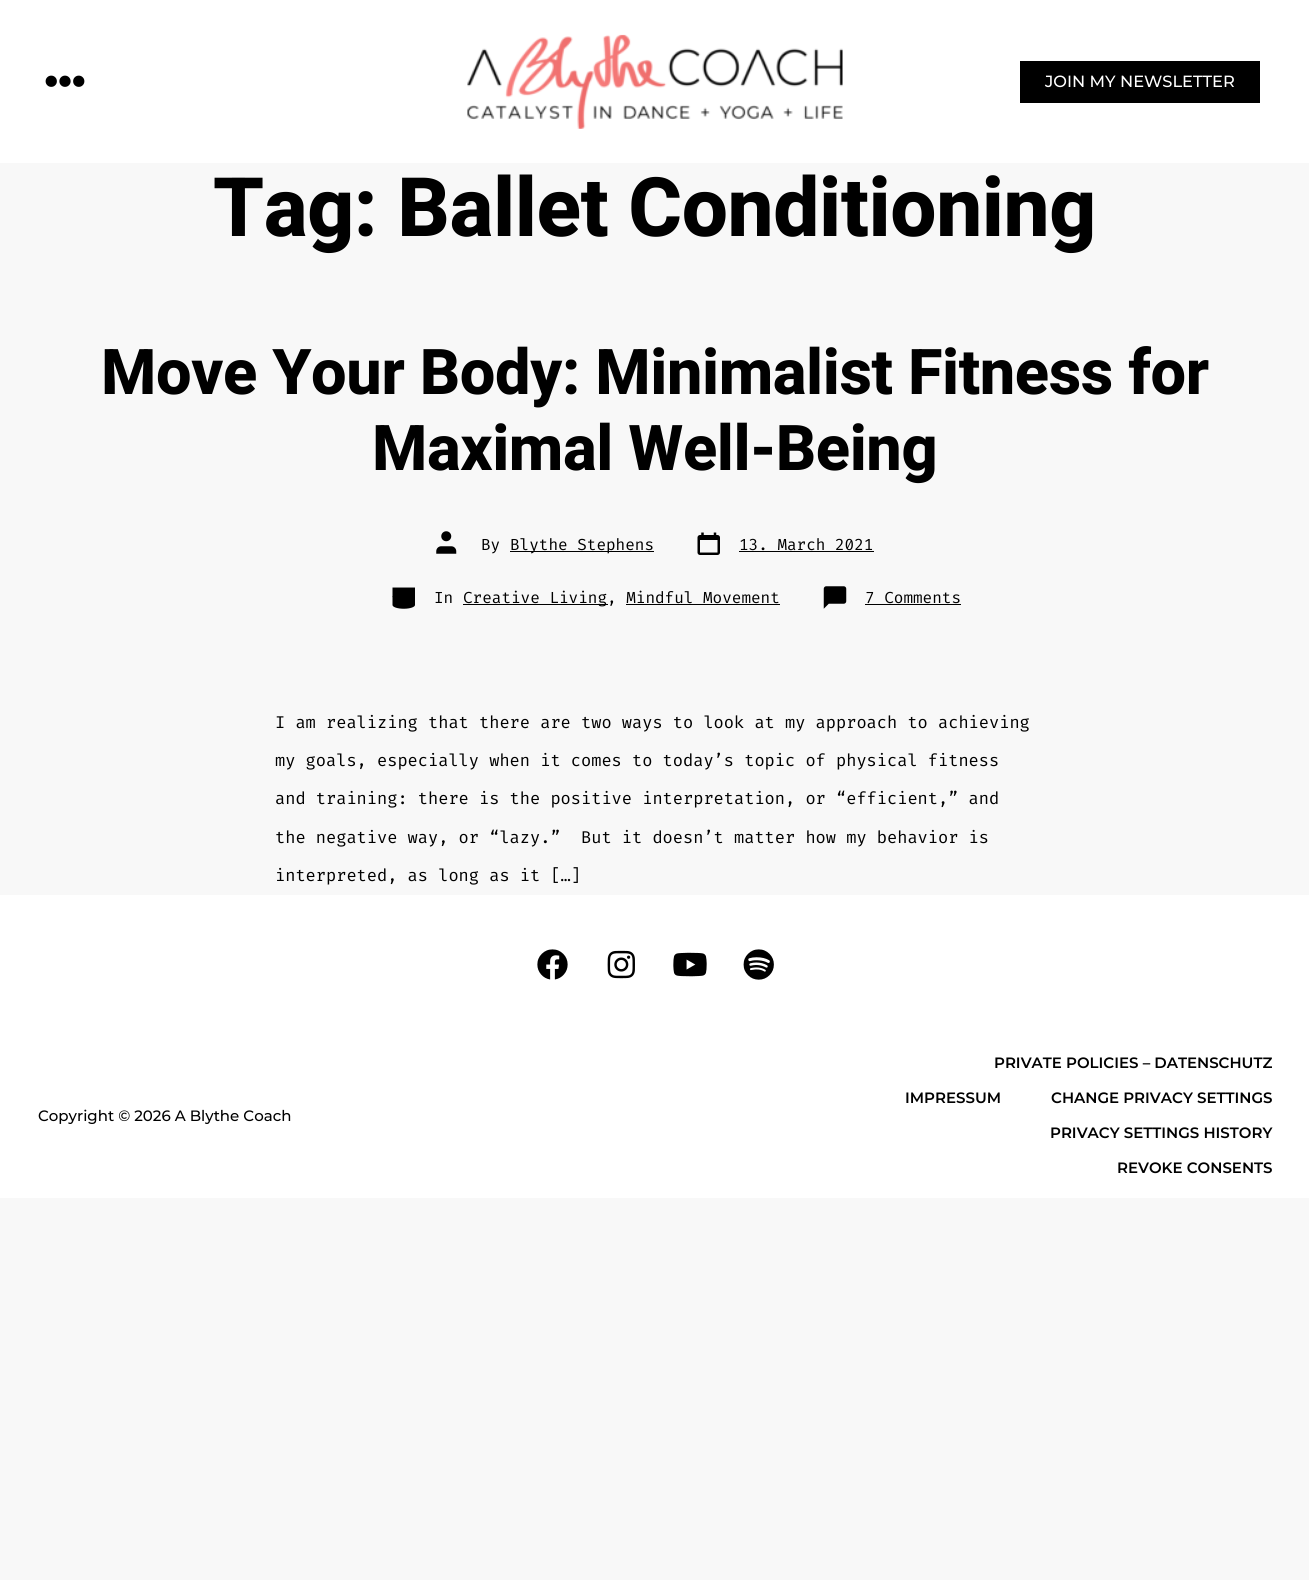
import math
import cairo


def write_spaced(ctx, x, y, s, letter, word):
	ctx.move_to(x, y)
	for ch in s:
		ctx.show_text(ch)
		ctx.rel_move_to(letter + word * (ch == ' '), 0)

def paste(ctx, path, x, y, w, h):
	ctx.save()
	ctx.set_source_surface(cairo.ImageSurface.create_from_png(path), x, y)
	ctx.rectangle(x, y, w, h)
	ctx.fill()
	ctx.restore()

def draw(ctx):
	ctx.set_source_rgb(0.969, 0.969, 0.969)
	ctx.paint()
	ctx.set_source_rgb(1, 1, 1)
	ctx.rectangle(0, 0, 1309, 163)
	ctx.fill()
	paste(ctx, 'media/1.png', 45, 75, 40, 12)
	paste(ctx, 'media/2.png', 467, 34, 376, 95)
	ctx.set_source_rgb(0, 0, 0)
	ctx.rectangle(1020, 61, 240, 42)
	ctx.fill()
	ctx.select_font_face('Montserrat Medium')
	ctx.set_font_size(16.25)
	ctx.set_source_rgb(1, 1, 1)
	ctx.move_to(1045, 87)
	ctx.show_text('JOIN MY NEWSLETTER')
	ctx.select_font_face('Heebo ExtraBold')
	ctx.set_font_size(82)
	ctx.set_source_rgb(0, 0, 0)
	write_spaced(ctx, 213, 236, 'Tag: Ballet Conditioning', -0.4, 0)
	ctx.set_font_size(63.1)
	write_spaced(ctx, 101, 394, 'Move Your Body: Minimalist Fitness for', -0.4, 0)
	write_spaced(ctx, 372, 470, 'Maximal Well-Being', -0.4, 0)
	paste(ctx, 'media/3.png', 436, 531, 21, 23)
	ctx.select_font_face('Fira Code')
	ctx.set_font_size(16)
	ctx.move_to(481, 550)
	ctx.show_text('By')
	ctx.rectangle(510, 551, 144, 1)
	ctx.fill()
	ctx.move_to(510, 550)
	ctx.show_text('Blythe Stephens')
	paste(ctx, 'media/4.png', 697, 532, 23, 23)
	ctx.move_to(739, 550)
	ctx.show_text('13. March 2021')
	ctx.rectangle(739, 551, 135, 1)
	ctx.fill()
	paste(ctx, 'media/5.png', 392, 587, 23, 22)
	ctx.move_to(434, 603)
	ctx.show_text('In')
	ctx.rectangle(463, 604, 145, 1)
	ctx.fill()
	ctx.move_to(463, 603)
	ctx.show_text('Creative Living, Mindful Movement')
	ctx.rectangle(626, 604, 154, 1)
	ctx.fill()
	paste(ctx, 'media/6.png', 823, 586, 24, 23)
	ctx.move_to(865, 603)
	ctx.show_text('7 Comments')
	ctx.rectangle(865, 604, 96, 1)
	ctx.fill()
	ctx.set_font_size(17)
	for x, y, s in [
		(275, 728, 'I am realizing that there are two ways to look at my approach to achieving'),
		(275, 766, 'my goals, especially when it comes to today’s topic of physical fitness'),
		(275, 804, 'and training: there is the positive interpretation, or “efficient,” and'),
		(275, 843, 'the negative way, or “lazy.”  But it doesn’t matter how my behavior is'),
		(275, 881, 'interpreted, as long as it […]'),
	]:
		ctx.move_to(x, y)
		ctx.show_text(s)
	ctx.set_source_rgb(1, 1, 1)
	ctx.rectangle(0, 895, 1309, 303)
	ctx.fill()
	paste(ctx, 'media/7.png', 537, 949, 31, 31)
	paste(ctx, 'media/8.png', 607, 950, 28, 29)
	paste(ctx, 'media/9.png', 673, 952, 34, 25)
	paste(ctx, 'media/10.png', 743, 949, 31, 31)
	ctx.select_font_face('Montserrat Medium')
	ctx.set_font_size(15)
	ctx.set_source_rgb(0, 0, 0)
	ctx.move_to(38, 1121)
	ctx.show_text('Copyright © 2026 A Blythe Coach')
	ctx.select_font_face('Montserrat SemiBold')
	for x, y, s in [
		(994, 1068, 'PRIVATE POLICIES – DATENSCHUTZ'),
		(905, 1103, 'IMPRESSUM'),
		(1051, 1103, 'CHANGE PRIVACY SETTINGS'),
		(1050, 1138, 'PRIVACY SETTINGS HISTORY'),
		(1117, 1173, 'REVOKE CONSENTS'),
	]:
		ctx.move_to(x, y)
		ctx.show_text(s)


surface = cairo.ImageSurface(cairo.FORMAT_RGB24, 1309, 1580)
ctx = cairo.Context(surface)
options = cairo.FontOptions()
options.set_hint_metrics(cairo.HINT_METRICS_OFF)
options.set_hint_style(cairo.HINT_STYLE_NONE)
ctx.set_font_options(options)
ctx.set_miter_limit(4)
draw(ctx)
surface.write_to_png('image.png')
